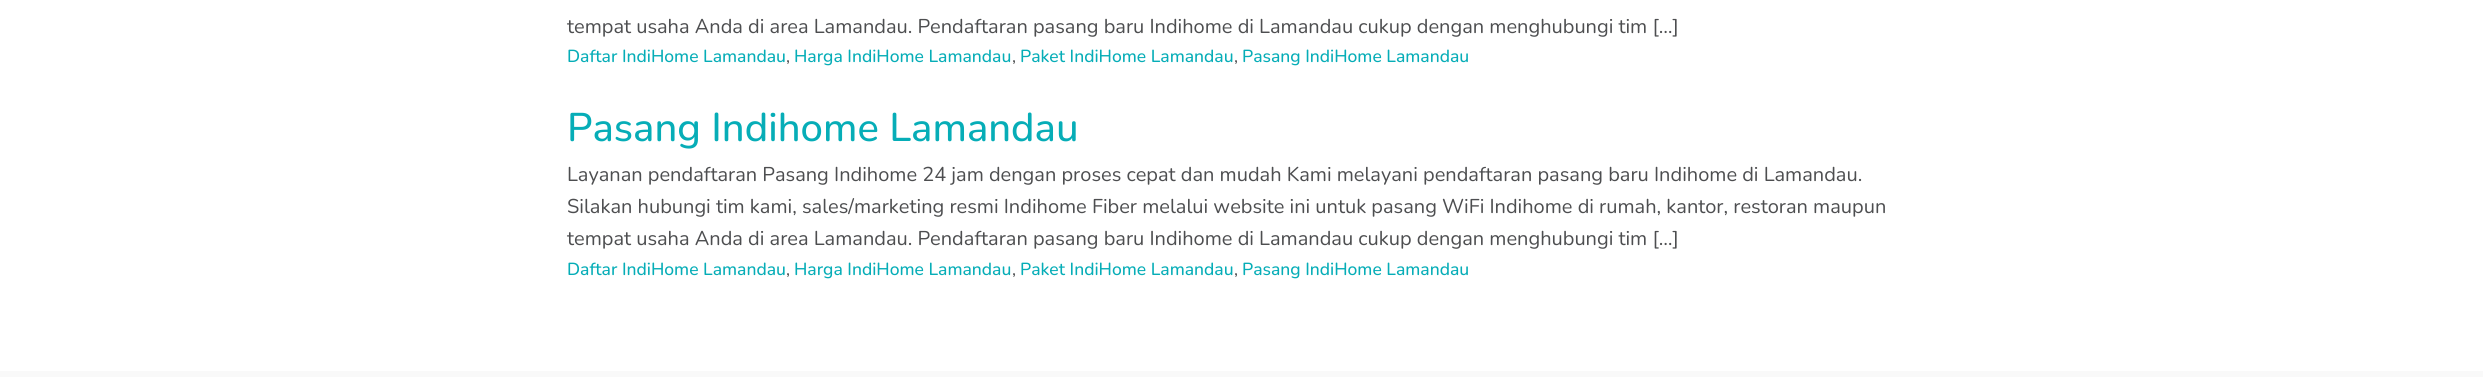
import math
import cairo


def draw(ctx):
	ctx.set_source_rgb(1, 1, 1)
	ctx.paint()
	ctx.select_font_face('Nunito')
	ctx.set_font_size(20)
	ctx.set_source_rgb(0.302, 0.306, 0.314)
	ctx.move_to(567, 33)
	ctx.show_text('tempat usaha Anda di area Lamandau. Pendaftaran pasang baru Indihome di Lamandau cukup dengan menghubungi tim […]')
	ctx.select_font_face('Nunito Medium')
	ctx.set_font_size(17.5)
	ctx.set_source_rgb(0.027, 0.678, 0.718)
	ctx.move_to(567, 62)
	ctx.show_text('Daftar IndiHome Lamandau')
	ctx.select_font_face('Nunito')
	ctx.set_source_rgb(0.302, 0.306, 0.314)
	ctx.move_to(786, 62)
	ctx.show_text(',')
	ctx.select_font_face('Nunito Medium')
	ctx.set_source_rgb(0.027, 0.678, 0.718)
	ctx.move_to(794, 62)
	ctx.show_text('Harga IndiHome Lamandau')
	ctx.select_font_face('Nunito')
	ctx.set_source_rgb(0.302, 0.306, 0.314)
	ctx.move_to(1012, 62)
	ctx.show_text(',')
	ctx.select_font_face('Nunito Medium')
	ctx.set_source_rgb(0.027, 0.678, 0.718)
	ctx.move_to(1020, 62)
	ctx.show_text('Paket IndiHome Lamandau')
	ctx.select_font_face('Nunito')
	ctx.set_source_rgb(0.302, 0.306, 0.314)
	ctx.move_to(1234, 62)
	ctx.show_text(',')
	ctx.select_font_face('Nunito Medium')
	ctx.set_source_rgb(0.027, 0.678, 0.718)
	ctx.move_to(1242, 62)
	ctx.show_text('Pasang IndiHome Lamandau')
	ctx.set_font_size(40)
	ctx.move_to(567, 141)
	ctx.show_text('Pasang Indihome Lamandau')
	ctx.select_font_face('Nunito')
	ctx.set_font_size(20)
	ctx.set_source_rgb(0.302, 0.306, 0.314)
	for x, y, s in [
		(567, 181, 'Layanan pendaftaran Pasang Indihome 24 jam dengan proses cepat dan mudah Kami melayani pendaftaran pasang baru Indihome di Lamandau.'),
		(567, 213, 'Silakan hubungi tim kami, sales/marketing resmi Indihome Fiber melalui website ini untuk pasang WiFi Indihome di rumah, kantor, restoran maupun'),
		(567, 245, 'tempat usaha Anda di area Lamandau. Pendaftaran pasang baru Indihome di Lamandau cukup dengan menghubungi tim […]'),
	]:
		ctx.move_to(x, y)
		ctx.show_text(s)
	ctx.select_font_face('Nunito Medium')
	ctx.set_font_size(17.5)
	ctx.set_source_rgb(0.027, 0.678, 0.718)
	ctx.move_to(567, 275)
	ctx.show_text('Daftar IndiHome Lamandau')
	ctx.select_font_face('Nunito')
	ctx.set_source_rgb(0.302, 0.306, 0.314)
	ctx.move_to(786, 275)
	ctx.show_text(',')
	ctx.select_font_face('Nunito Medium')
	ctx.set_source_rgb(0.027, 0.678, 0.718)
	ctx.move_to(794, 275)
	ctx.show_text('Harga IndiHome Lamandau')
	ctx.select_font_face('Nunito')
	ctx.set_source_rgb(0.302, 0.306, 0.314)
	ctx.move_to(1012, 275)
	ctx.show_text(',')
	ctx.select_font_face('Nunito Medium')
	ctx.set_source_rgb(0.027, 0.678, 0.718)
	ctx.move_to(1020, 275)
	ctx.show_text('Paket IndiHome Lamandau')
	ctx.select_font_face('Nunito')
	ctx.set_source_rgb(0.302, 0.306, 0.314)
	ctx.move_to(1234, 275)
	ctx.show_text(',')
	ctx.select_font_face('Nunito Medium')
	ctx.set_source_rgb(0.027, 0.678, 0.718)
	ctx.move_to(1242, 275)
	ctx.show_text('Pasang IndiHome Lamandau')
	ctx.set_source_rgb(0.976, 0.976, 0.976)
	ctx.rectangle(0, 371, 2483, 6)
	ctx.fill()


surface = cairo.ImageSurface(cairo.FORMAT_RGB24, 2483, 377)
ctx = cairo.Context(surface)
options = cairo.FontOptions()
options.set_hint_metrics(cairo.HINT_METRICS_OFF)
options.set_hint_style(cairo.HINT_STYLE_NONE)
ctx.set_font_options(options)
ctx.set_miter_limit(4)
draw(ctx)
surface.write_to_png('image.png')
